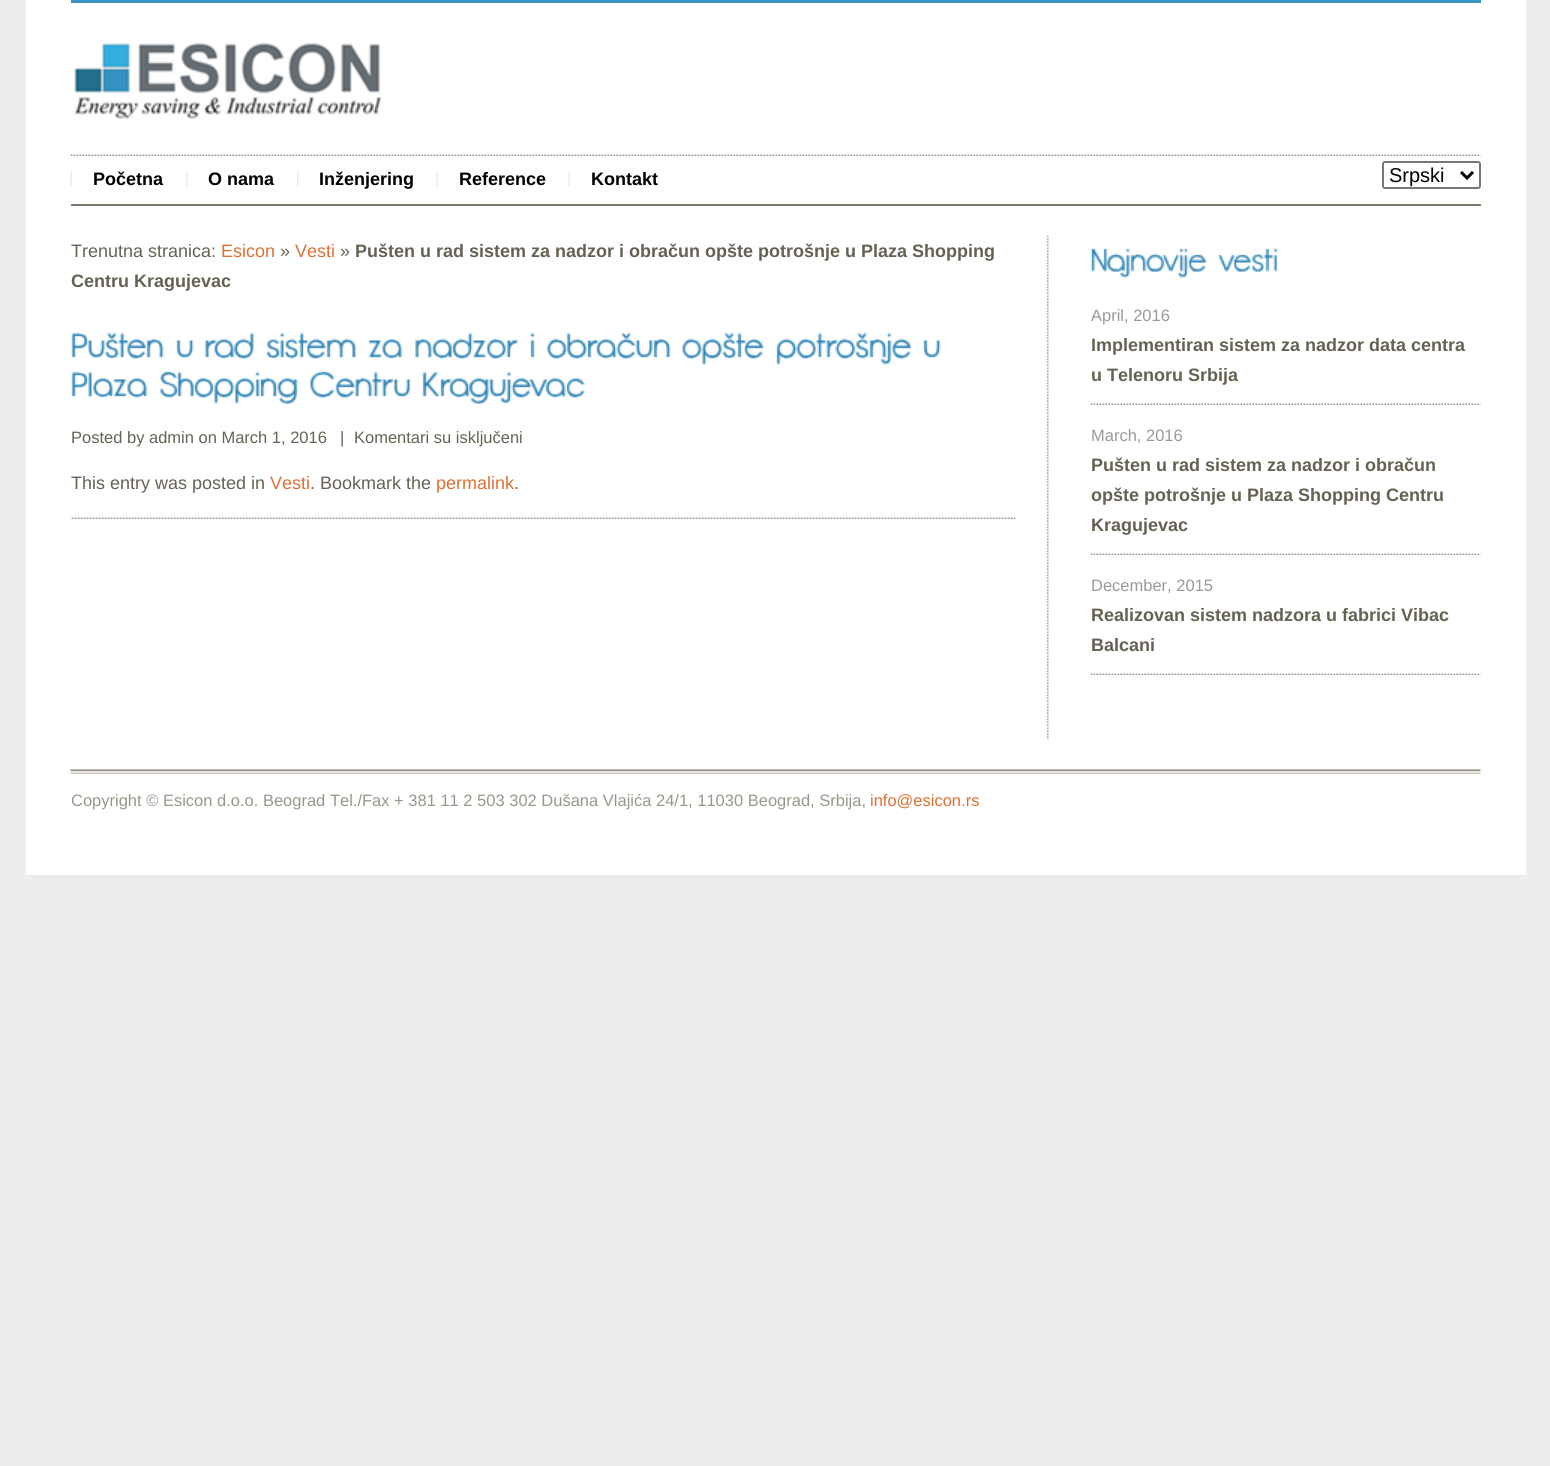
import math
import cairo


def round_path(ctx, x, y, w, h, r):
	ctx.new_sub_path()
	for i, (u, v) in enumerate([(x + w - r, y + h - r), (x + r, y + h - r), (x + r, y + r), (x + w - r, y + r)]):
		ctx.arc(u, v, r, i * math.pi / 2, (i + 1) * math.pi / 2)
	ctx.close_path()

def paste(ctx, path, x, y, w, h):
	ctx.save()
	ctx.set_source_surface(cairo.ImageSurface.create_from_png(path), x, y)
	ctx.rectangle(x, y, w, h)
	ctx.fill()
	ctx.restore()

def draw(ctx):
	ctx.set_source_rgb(0.929, 0.929, 0.929)
	ctx.paint()
	ctx.set_source_rgb(1, 1, 1)
	ctx.rectangle(26, 0, 1500, 875)
	ctx.fill()
	ctx.set_source_rgb(0.212, 0.576, 0.761)
	ctx.rectangle(71, 0, 1410, 3)
	ctx.fill()
	paste(ctx, 'media/1.png', 73, 43, 309, 77)
	paste(ctx, 'media/2.png', 70, 154, 1411, 2)
	ctx.set_source_rgb(0.486, 0.478, 0.42)
	ctx.rectangle(71, 204, 1410, 2)
	ctx.fill()
	paste(ctx, 'media/3.png', 70, 171, 2, 15)
	ctx.select_font_face('Liberation Sans', cairo.FONT_SLANT_NORMAL, cairo.FONT_WEIGHT_BOLD)
	ctx.set_font_size(18)
	ctx.set_source_rgb(0, 0, 0)
	ctx.move_to(93, 185)
	ctx.show_text('Početna')
	paste(ctx, 'media/4.png', 186, 171, 2, 15)
	ctx.move_to(208, 185)
	ctx.show_text('O nama')
	paste(ctx, 'media/4.png', 297, 171, 2, 15)
	ctx.move_to(319, 185)
	ctx.show_text('Inženjering')
	paste(ctx, 'media/3.png', 436, 171, 2, 15)
	ctx.move_to(459, 185)
	ctx.show_text('Reference')
	paste(ctx, 'media/3.png', 568, 171, 2, 15)
	ctx.move_to(591, 185)
	ctx.show_text('Kontakt')
	round_path(ctx, 1383, 162, 97, 26, 2)
	ctx.set_source_rgb(0.463, 0.463, 0.463)
	ctx.stroke()
	ctx.new_path()
	ctx.move_to(1461, 172)
	ctx.line_to(1467, 178)
	ctx.line_to(1473, 172)
	ctx.set_source_rgb(0, 0, 0)
	ctx.set_line_width(3)
	ctx.stroke()
	ctx.select_font_face('Liberation Sans')
	ctx.set_font_size(20)
	ctx.move_to(1389, 182)
	ctx.show_text('Srpski')
	paste(ctx, 'media/5.png', 1046, 235, 3, 505)
	ctx.set_font_size(18)
	ctx.set_source_rgb(0.396, 0.384, 0.325)
	ctx.move_to(71, 257)
	ctx.show_text('Trenutna stranica:')
	ctx.set_source_rgb(0.875, 0.439, 0.204)
	ctx.move_to(221, 257)
	ctx.show_text('Esicon')
	ctx.set_source_rgb(0.396, 0.384, 0.325)
	ctx.move_to(280, 257)
	ctx.show_text('»')
	ctx.set_source_rgb(0.875, 0.439, 0.204)
	ctx.move_to(295, 257)
	ctx.show_text('Vesti')
	ctx.set_source_rgb(0.396, 0.384, 0.325)
	ctx.move_to(340, 257)
	ctx.show_text('»')
	ctx.select_font_face('Liberation Sans', cairo.FONT_SLANT_NORMAL, cairo.FONT_WEIGHT_BOLD)
	ctx.move_to(355, 257)
	ctx.show_text('Pušten u rad sistem za nadzor i obračun opšte potrošnje u Plaza Shopping')
	ctx.move_to(71, 287)
	ctx.show_text('Centru Kragujevac')
	paste(ctx, 'media/6.png', 70, 517, 946, 2)
	paste(ctx, 'media/7.png', 71, 332, 93, 27)
	paste(ctx, 'media/8.png', 176, 340, 18, 18)
	paste(ctx, 'media/9.png', 205, 332, 49, 27)
	paste(ctx, 'media/10.png', 266, 332, 90, 27)
	paste(ctx, 'media/11.png', 368, 338, 35, 21)
	paste(ctx, 'media/12.png', 415, 332, 103, 27)
	paste(ctx, 'media/13.png', 530, 332, 5, 26)
	paste(ctx, 'media/14.png', 547, 332, 124, 27)
	paste(ctx, 'media/15.png', 682, 332, 82, 33)
	paste(ctx, 'media/16.png', 776, 332, 136, 33)
	paste(ctx, 'media/8.png', 923, 340, 18, 18)
	paste(ctx, 'media/17.png', 71, 371, 77, 27)
	paste(ctx, 'media/18.png', 160, 371, 138, 33)
	paste(ctx, 'media/19.png', 310, 371, 101, 27)
	paste(ctx, 'media/20.png', 422, 371, 164, 33)
	ctx.select_font_face('Liberation Sans')
	ctx.set_font_size(16.5)
	for x, y, s in [
		(71, 443, 'Posted by admin on March 1, 2016'),
		(340, 443, '|'),
		(354, 443, 'Komentari su isključeni'),
	]:
		ctx.move_to(x, y)
		ctx.show_text(s)
	ctx.set_font_size(18)
	ctx.move_to(71, 489)
	ctx.show_text('This entry was posted in')
	ctx.set_source_rgb(0.875, 0.439, 0.204)
	ctx.move_to(270, 489)
	ctx.show_text('Vesti')
	ctx.set_source_rgb(0.396, 0.384, 0.325)
	ctx.move_to(310, 489)
	ctx.show_text('. Bookmark the')
	ctx.set_source_rgb(0.875, 0.439, 0.204)
	ctx.move_to(436, 489)
	ctx.show_text('permalink')
	ctx.set_source_rgb(0.396, 0.384, 0.325)
	ctx.move_to(514, 489)
	ctx.show_text('.')
	paste(ctx, 'media/21.png', 1090, 248, 117, 30)
	paste(ctx, 'media/22.png', 1217, 248, 61, 24)
	paste(ctx, 'media/23.png', 1090, 403, 391, 2)
	ctx.set_font_size(16.5)
	ctx.set_source_rgb(0.6, 0.6, 0.6)
	ctx.move_to(1091, 321)
	ctx.show_text('April, 2016')
	ctx.select_font_face('Liberation Sans', cairo.FONT_SLANT_NORMAL, cairo.FONT_WEIGHT_BOLD)
	ctx.set_font_size(18)
	ctx.set_source_rgb(0.396, 0.384, 0.325)
	ctx.move_to(1091, 351)
	ctx.show_text('Implementiran sistem za nadzor data centra')
	ctx.move_to(1091, 381)
	ctx.show_text('u Telenoru Srbija')
	paste(ctx, 'media/23.png', 1090, 553, 391, 2)
	ctx.select_font_face('Liberation Sans')
	ctx.set_font_size(16.5)
	ctx.set_source_rgb(0.6, 0.6, 0.6)
	ctx.move_to(1091, 441)
	ctx.show_text('March, 2016')
	ctx.select_font_face('Liberation Sans', cairo.FONT_SLANT_NORMAL, cairo.FONT_WEIGHT_BOLD)
	ctx.set_font_size(18)
	ctx.set_source_rgb(0.396, 0.384, 0.325)
	for x, y, s in [
		(1091, 471, 'Pušten u rad sistem za nadzor i obračun'),
		(1091, 501, 'opšte potrošnje u Plaza Shopping Centru'),
		(1091, 531, 'Kragujevac'),
	]:
		ctx.move_to(x, y)
		ctx.show_text(s)
	paste(ctx, 'media/23.png', 1090, 673, 391, 2)
	ctx.select_font_face('Liberation Sans')
	ctx.set_font_size(16.5)
	ctx.set_source_rgb(0.6, 0.6, 0.6)
	ctx.move_to(1091, 591)
	ctx.show_text('December, 2015')
	ctx.select_font_face('Liberation Sans', cairo.FONT_SLANT_NORMAL, cairo.FONT_WEIGHT_BOLD)
	ctx.set_font_size(18)
	ctx.set_source_rgb(0.396, 0.384, 0.325)
	ctx.move_to(1091, 621)
	ctx.show_text('Realizovan sistem nadzora u fabrici Vibac')
	ctx.move_to(1091, 651)
	ctx.show_text('Balcani')
	paste(ctx, 'media/24.png', 70, 769, 1411, 5)
	ctx.select_font_face('Liberation Sans')
	ctx.set_font_size(16.5)
	ctx.set_source_rgb(0.6, 0.588, 0.537)
	ctx.move_to(71, 806)
	ctx.show_text('Copyright © Esicon d.o.o. Beograd Tel./Fax + 381 11 2 503 302 Dušana Vlajića 24/1, 11030 Beograd, Srbija,')
	ctx.set_source_rgb(0.875, 0.439, 0.204)
	ctx.move_to(870, 806)
	ctx.show_text('info@esicon.rs')


surface = cairo.ImageSurface(cairo.FORMAT_RGB24, 1550, 1466)
ctx = cairo.Context(surface)
options = cairo.FontOptions()
options.set_hint_metrics(cairo.HINT_METRICS_OFF)
options.set_hint_style(cairo.HINT_STYLE_NONE)
ctx.set_font_options(options)
ctx.set_miter_limit(4)
draw(ctx)
surface.write_to_png('image.png')
